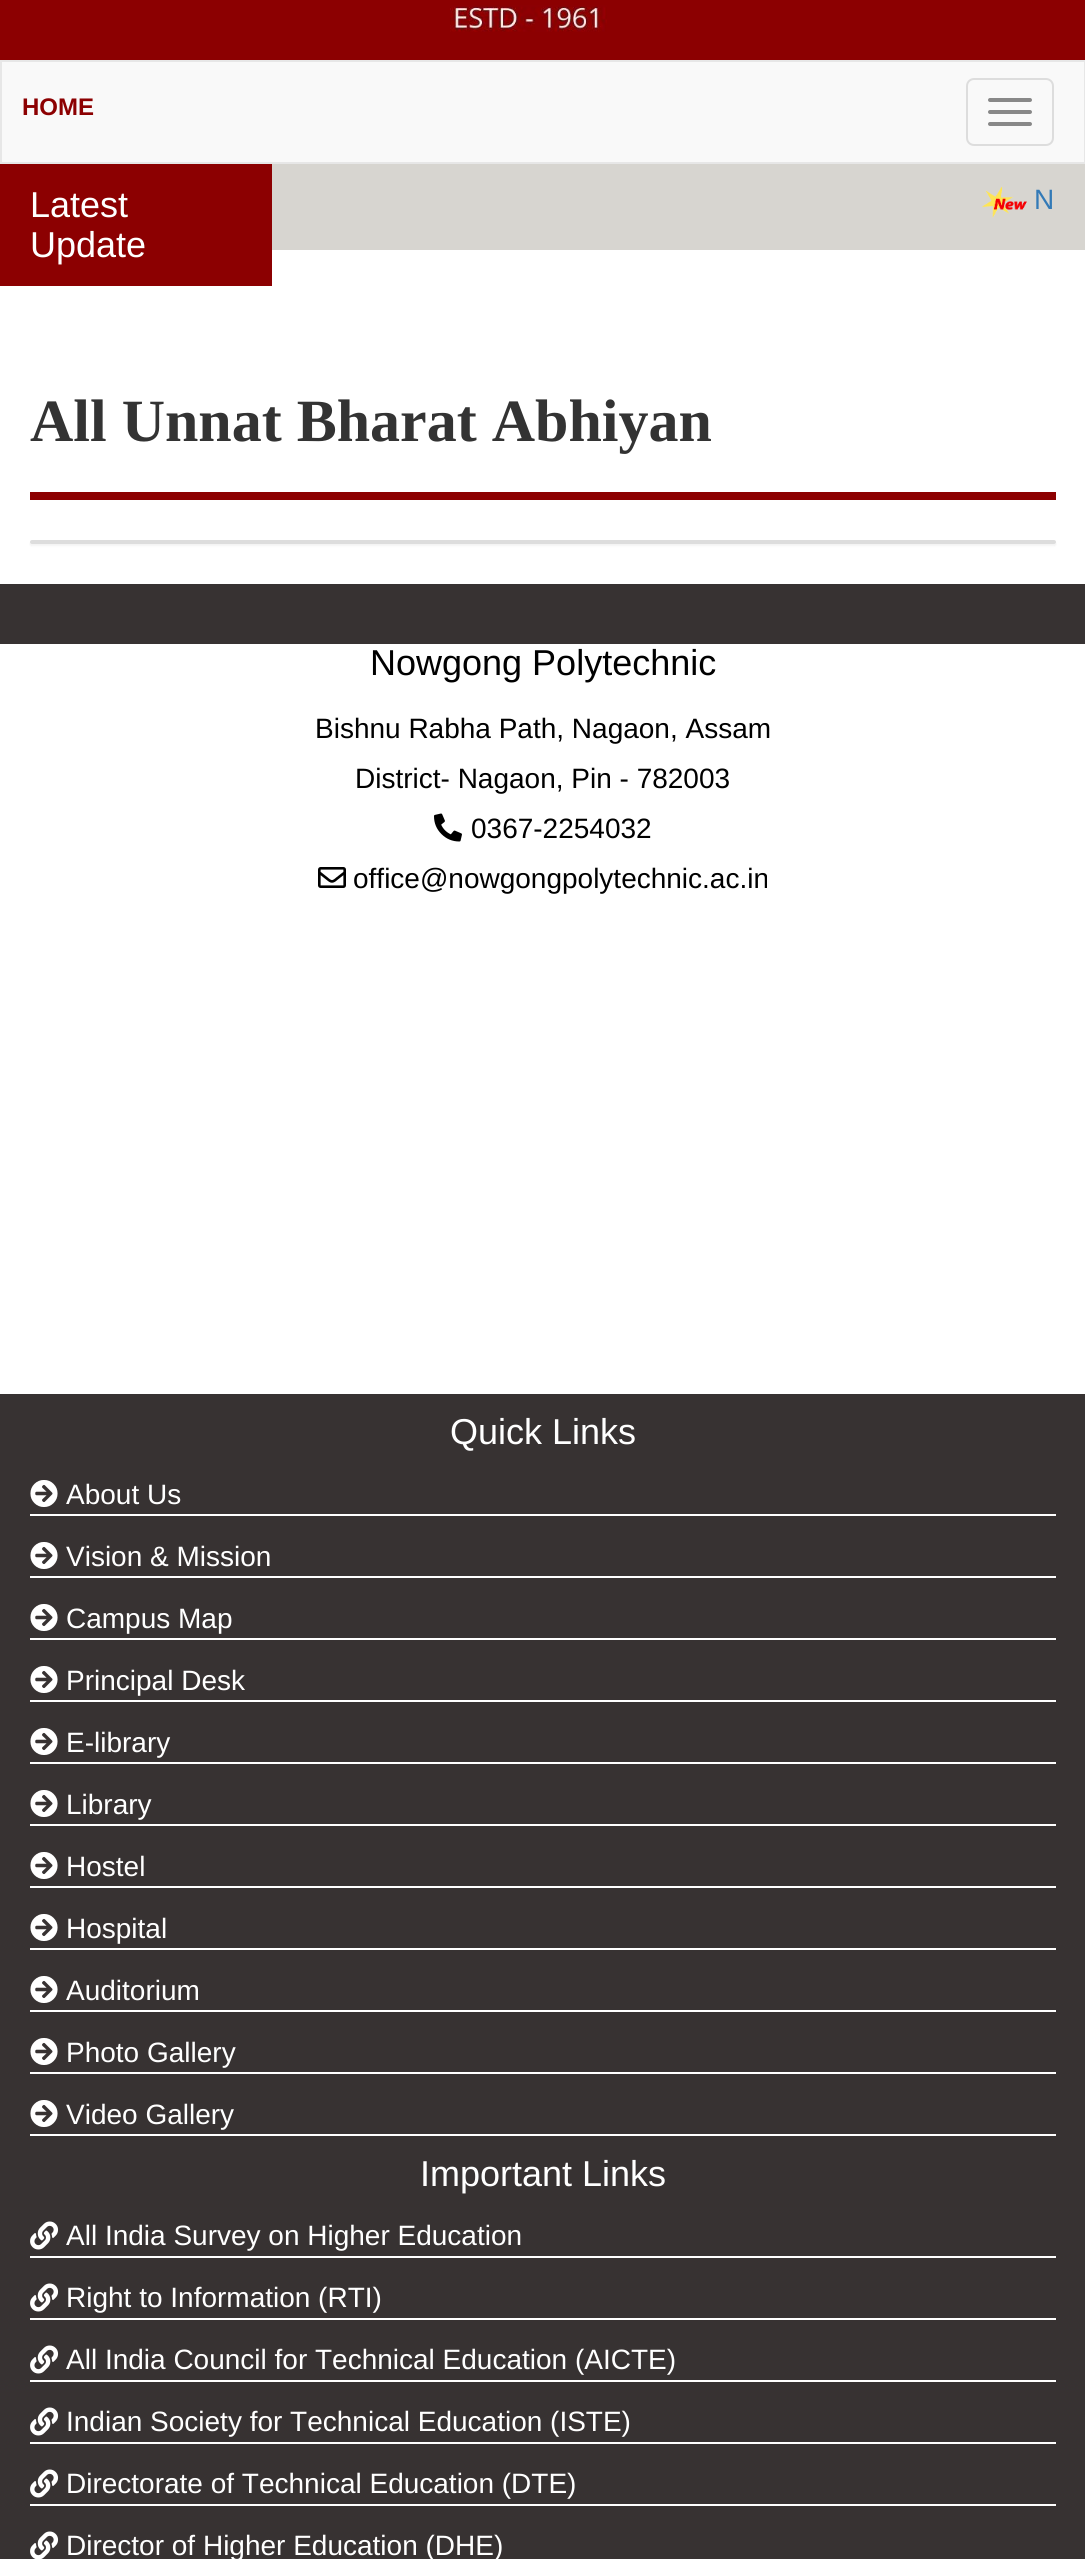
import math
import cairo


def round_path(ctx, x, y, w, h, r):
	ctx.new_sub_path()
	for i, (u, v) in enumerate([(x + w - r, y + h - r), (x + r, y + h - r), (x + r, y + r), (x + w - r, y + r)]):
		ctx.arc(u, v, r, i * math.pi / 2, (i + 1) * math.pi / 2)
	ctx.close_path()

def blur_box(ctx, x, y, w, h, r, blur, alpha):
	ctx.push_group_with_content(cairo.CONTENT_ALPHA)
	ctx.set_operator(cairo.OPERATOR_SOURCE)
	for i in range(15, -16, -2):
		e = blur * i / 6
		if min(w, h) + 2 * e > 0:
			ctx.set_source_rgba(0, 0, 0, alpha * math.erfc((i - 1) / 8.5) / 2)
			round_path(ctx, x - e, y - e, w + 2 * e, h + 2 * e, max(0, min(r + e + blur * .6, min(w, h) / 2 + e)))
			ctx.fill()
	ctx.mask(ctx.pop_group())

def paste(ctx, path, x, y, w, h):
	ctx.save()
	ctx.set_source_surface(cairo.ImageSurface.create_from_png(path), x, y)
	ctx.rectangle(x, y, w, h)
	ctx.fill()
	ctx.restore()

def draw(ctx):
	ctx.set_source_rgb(1, 1, 1)
	ctx.paint()
	ctx.set_source_rgb(0.549, 0, 0.004)
	ctx.rectangle(0, 0, 1085, 60)
	ctx.fill()
	paste(ctx, 'media/1.png', 450, 5, 157, 27)
	ctx.set_source_rgb(0.973, 0.973, 0.973)
	ctx.rectangle(1, 61, 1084, 102)
	ctx.fill_preserve()
	ctx.set_source_rgb(0.906, 0.906, 0.906)
	ctx.stroke()
	ctx.select_font_face('Liberation Sans', cairo.FONT_SLANT_NORMAL, cairo.FONT_WEIGHT_BOLD)
	ctx.set_font_size(24)
	ctx.set_source_rgb(0.549, 0, 0.004)
	ctx.move_to(22, 115)
	ctx.show_text('HOME')
	round_path(ctx, 967, 79, 86, 66, 7)
	ctx.set_source_rgb(0.867, 0.867, 0.867)
	ctx.stroke()
	ctx.set_source_rgb(0.533, 0.533, 0.533)
	round_path(ctx, 988, 98, 44, 4, 2)
	ctx.fill()
	round_path(ctx, 988, 110, 44, 4, 2)
	ctx.fill()
	round_path(ctx, 988, 122, 44, 4, 2)
	ctx.fill()
	ctx.set_source_rgb(0.549, 0, 0.004)
	ctx.rectangle(0, 164, 272, 122)
	ctx.fill()
	ctx.select_font_face('Liberation Sans')
	ctx.set_font_size(36)
	ctx.set_source_rgb(1, 1, 1)
	ctx.move_to(30, 217)
	ctx.show_text('Latest')
	ctx.move_to(30, 257)
	ctx.show_text('Update')
	ctx.set_source_rgb(0.843, 0.835, 0.816)
	ctx.rectangle(272, 164, 813, 86)
	ctx.fill()
	paste(ctx, 'media/2.png', 982, 186, 45, 32)
	ctx.set_font_size(28)
	ctx.set_source_rgb(0.2, 0.478, 0.718)
	ctx.move_to(1034, 209)
	ctx.show_text('N')
	ctx.select_font_face('Liberation Serif', cairo.FONT_SLANT_NORMAL, cairo.FONT_WEIGHT_BOLD)
	ctx.set_font_size(60)
	ctx.set_source_rgb(0.2, 0.2, 0.2)
	ctx.move_to(30, 441)
	ctx.show_text('All Unnat Bharat Abhiyan')
	ctx.set_source_rgb(0.549, 0, 0.004)
	ctx.rectangle(30, 492, 1026, 8)
	ctx.fill()
	ctx.set_source_rgb(0, 0, 0)
	blur_box(ctx, 30, 542, 1026, 4, 2, 1, 0.05)
	ctx.set_source_rgb(0.867, 0.867, 0.867)
	round_path(ctx, 30, 540, 1026, 4, 2)
	ctx.fill()
	ctx.set_source_rgb(0.216, 0.196, 0.196)
	ctx.rectangle(0, 584, 1085, 1975)
	ctx.fill()
	ctx.set_source_rgb(1, 1, 1)
	ctx.rectangle(0, 644, 1085, 750)
	ctx.fill()
	ctx.select_font_face('Liberation Sans')
	ctx.set_font_size(36)
	ctx.set_source_rgb(0, 0, 0)
	ctx.move_to(370, 675)
	ctx.show_text('Nowgong Polytechnic')
	ctx.set_font_size(28)
	ctx.move_to(315, 738)
	ctx.show_text('Bishnu Rabha Path, Nagaon, Assam')
	ctx.move_to(355, 788)
	ctx.show_text('District- Nagaon, Pin - 782003')
	paste(ctx, 'media/3.png', 434, 813, 28, 29)
	ctx.move_to(471, 838)
	ctx.show_text('0367-2254032')
	paste(ctx, 'media/4.png', 318, 867, 28, 21)
	ctx.move_to(353, 888)
	ctx.show_text('office@nowgongpolytechnic.ac.in')
	ctx.set_font_size(36)
	ctx.set_source_rgb(1, 1, 1)
	ctx.move_to(450, 1444)
	ctx.show_text('Quick Links')
	ctx.rectangle(30, 1514, 1026, 2)
	ctx.fill()
	paste(ctx, 'media/5.png', 30, 1480, 28, 27)
	ctx.set_font_size(28)
	ctx.move_to(66, 1504)
	ctx.show_text('About Us')
	ctx.rectangle(30, 1576, 1026, 2)
	ctx.fill()
	paste(ctx, 'media/5.png', 30, 1542, 28, 27)
	ctx.move_to(66, 1566)
	ctx.show_text('Vision & Mission')
	ctx.rectangle(30, 1638, 1026, 2)
	ctx.fill()
	paste(ctx, 'media/5.png', 30, 1604, 28, 27)
	ctx.move_to(66, 1628)
	ctx.show_text('Campus Map')
	ctx.rectangle(30, 1700, 1026, 2)
	ctx.fill()
	paste(ctx, 'media/5.png', 30, 1666, 28, 27)
	ctx.move_to(66, 1690)
	ctx.show_text('Principal Desk')
	ctx.rectangle(30, 1762, 1026, 2)
	ctx.fill()
	paste(ctx, 'media/5.png', 30, 1728, 28, 27)
	ctx.move_to(66, 1752)
	ctx.show_text('E-library')
	ctx.rectangle(30, 1824, 1026, 2)
	ctx.fill()
	paste(ctx, 'media/5.png', 30, 1790, 28, 27)
	ctx.move_to(66, 1814)
	ctx.show_text('Library')
	ctx.rectangle(30, 1886, 1026, 2)
	ctx.fill()
	paste(ctx, 'media/5.png', 30, 1852, 28, 27)
	ctx.move_to(66, 1876)
	ctx.show_text('Hostel')
	ctx.rectangle(30, 1948, 1026, 2)
	ctx.fill()
	paste(ctx, 'media/5.png', 30, 1914, 28, 27)
	ctx.move_to(66, 1938)
	ctx.show_text('Hospital')
	ctx.rectangle(30, 2010, 1026, 2)
	ctx.fill()
	paste(ctx, 'media/5.png', 30, 1976, 28, 27)
	ctx.move_to(66, 2000)
	ctx.show_text('Auditorium')
	ctx.rectangle(30, 2072, 1026, 2)
	ctx.fill()
	paste(ctx, 'media/5.png', 30, 2038, 28, 27)
	ctx.move_to(66, 2062)
	ctx.show_text('Photo Gallery')
	ctx.rectangle(30, 2134, 1026, 2)
	ctx.fill()
	paste(ctx, 'media/5.png', 30, 2100, 28, 27)
	ctx.move_to(66, 2124)
	ctx.show_text('Video Gallery')
	ctx.set_font_size(36)
	ctx.move_to(420, 2186)
	ctx.show_text('Important Links')
	ctx.rectangle(30, 2256, 1026, 2)
	ctx.fill()
	paste(ctx, 'media/6.png', 30, 2221, 29, 29)
	ctx.set_font_size(28)
	ctx.move_to(66, 2245)
	ctx.show_text('All India Survey on Higher Education')
	ctx.rectangle(30, 2318, 1026, 2)
	ctx.fill()
	paste(ctx, 'media/6.png', 30, 2283, 29, 29)
	ctx.move_to(66, 2307)
	ctx.show_text('Right to Information (RTI)')
	ctx.rectangle(30, 2380, 1026, 2)
	ctx.fill()
	paste(ctx, 'media/6.png', 30, 2345, 29, 29)
	ctx.move_to(66, 2369)
	ctx.show_text('All India Council for Technical Education (AICTE)')
	ctx.rectangle(30, 2442, 1026, 2)
	ctx.fill()
	paste(ctx, 'media/6.png', 30, 2407, 29, 29)
	ctx.move_to(66, 2431)
	ctx.show_text('Indian Society for Technical Education (ISTE)')
	ctx.rectangle(30, 2504, 1026, 2)
	ctx.fill()
	paste(ctx, 'media/6.png', 30, 2469, 29, 29)
	ctx.move_to(66, 2493)
	ctx.show_text('Directorate of Technical Education (DTE)')
	paste(ctx, 'media/7.png', 30, 2531, 29, 28)
	ctx.move_to(66, 2555)
	ctx.show_text('Director of Higher Education (DHE)')


surface = cairo.ImageSurface(cairo.FORMAT_RGB24, 1085, 2559)
ctx = cairo.Context(surface)
options = cairo.FontOptions()
options.set_hint_metrics(cairo.HINT_METRICS_OFF)
options.set_hint_style(cairo.HINT_STYLE_NONE)
ctx.set_font_options(options)
ctx.set_miter_limit(4)
draw(ctx)
surface.write_to_png('image.png')
